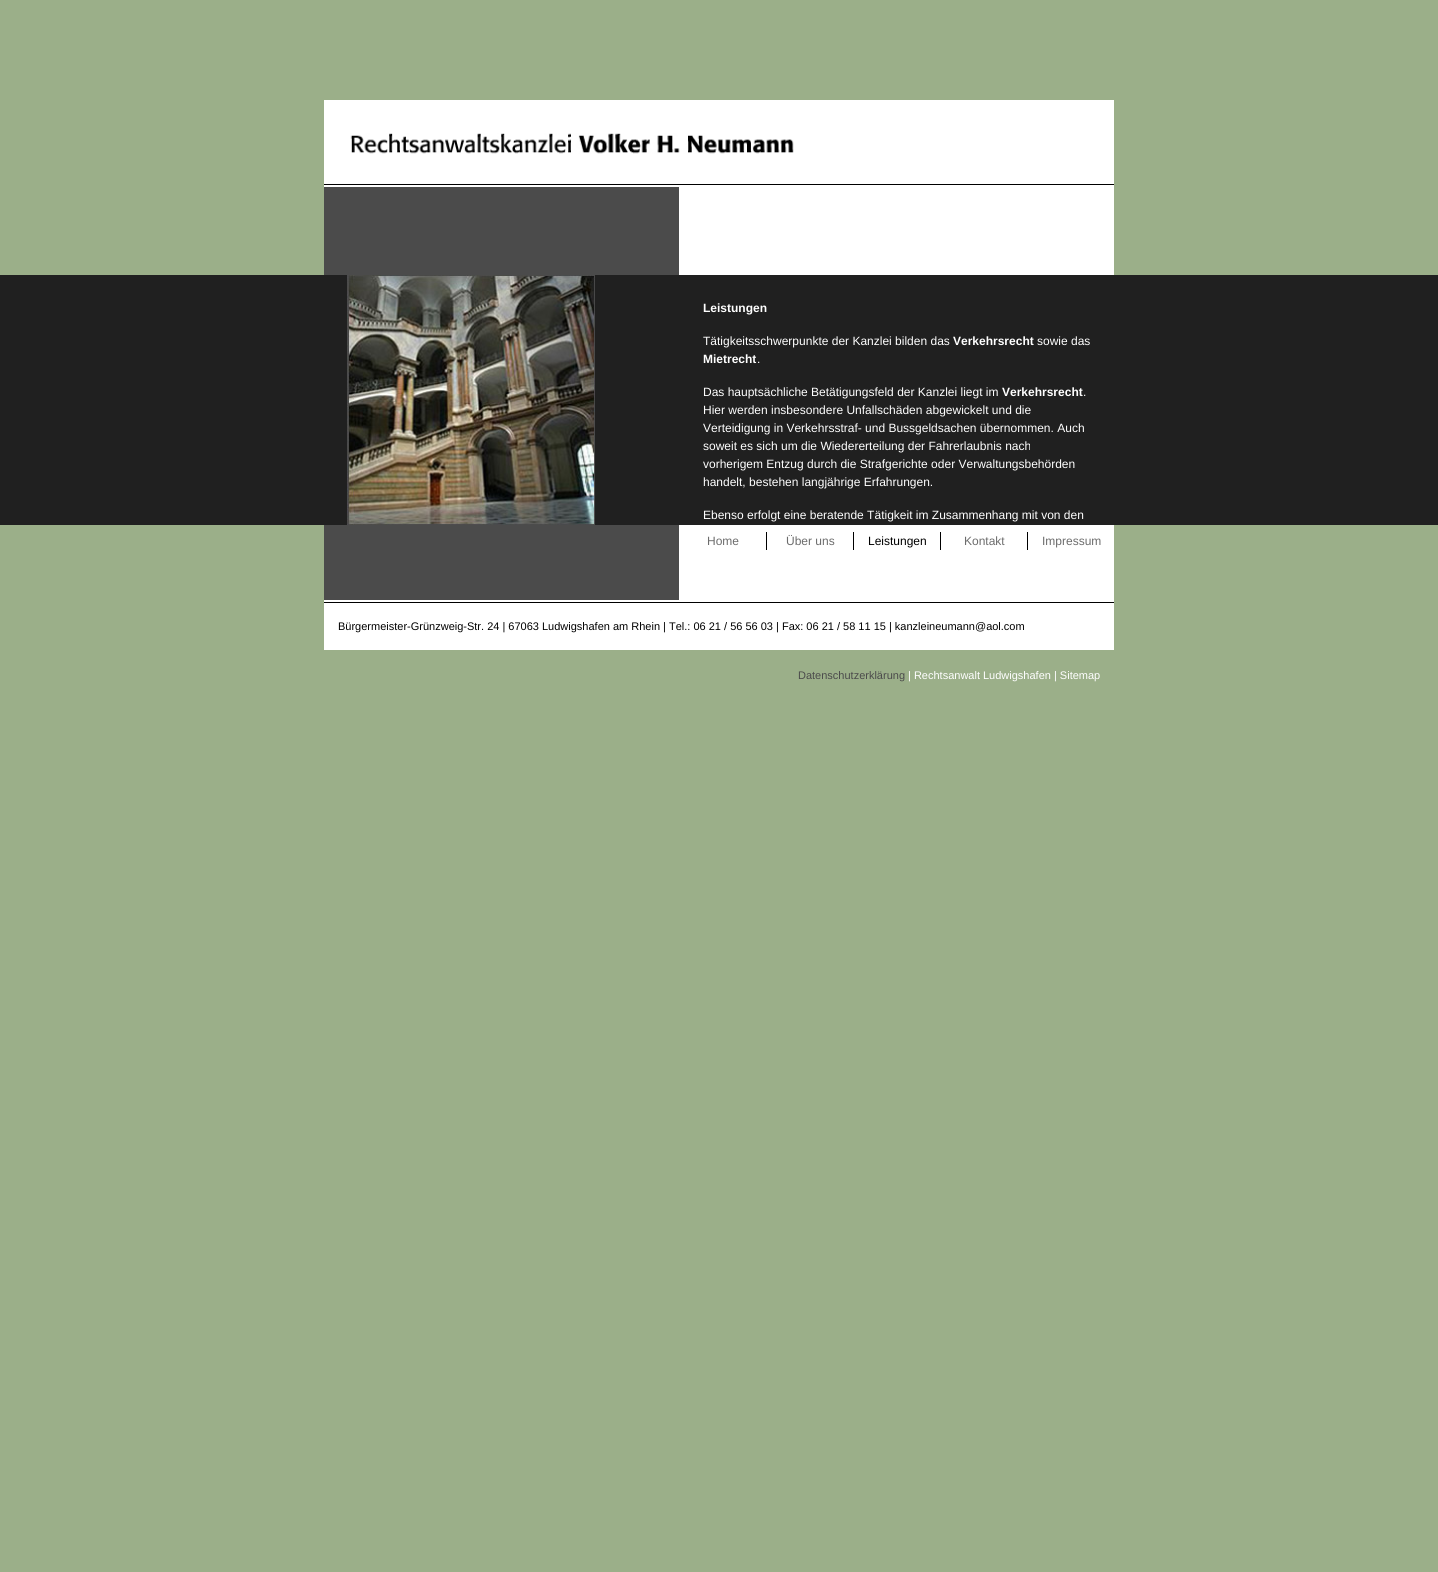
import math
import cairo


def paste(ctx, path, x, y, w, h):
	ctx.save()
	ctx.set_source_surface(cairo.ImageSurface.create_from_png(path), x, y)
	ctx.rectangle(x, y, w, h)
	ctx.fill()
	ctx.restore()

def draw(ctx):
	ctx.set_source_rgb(0.608, 0.686, 0.537)
	ctx.paint()
	ctx.set_source_rgb(1, 1, 1)
	ctx.rectangle(324, 100, 790, 87)
	ctx.fill()
	ctx.set_source_rgb(0, 0, 0)
	ctx.rectangle(324, 184, 790, 1)
	ctx.fill()
	paste(ctx, 'media/1.png', 350, 133, 444, 21)
	ctx.set_source_rgb(0.294, 0.294, 0.294)
	ctx.rectangle(324, 187, 355, 413)
	ctx.fill()
	ctx.set_source_rgb(1, 1, 1)
	ctx.rectangle(324, 600, 355, 2)
	ctx.rectangle(679, 187, 435, 415)
	ctx.fill()
	ctx.set_source_rgb(0.125, 0.125, 0.125)
	ctx.rectangle(0, 275, 1438, 250)
	ctx.fill()
	paste(ctx, 'media/2.png', 347, 275, 248, 250)
	ctx.select_font_face('Liberation Sans', cairo.FONT_SLANT_NORMAL, cairo.FONT_WEIGHT_BOLD)
	ctx.set_font_size(12)
	ctx.set_source_rgb(1, 1, 1)
	ctx.move_to(703, 312)
	ctx.show_text('Leistungen')
	ctx.select_font_face('Liberation Sans')
	ctx.move_to(703, 345)
	ctx.show_text('Tätigkeitsschwerpunkte der Kanzlei bilden das')
	ctx.select_font_face('Liberation Sans', cairo.FONT_SLANT_NORMAL, cairo.FONT_WEIGHT_BOLD)
	ctx.move_to(953, 345)
	ctx.show_text('Verkehrsrecht')
	ctx.select_font_face('Liberation Sans')
	ctx.move_to(1037, 345)
	ctx.show_text('sowie das')
	ctx.select_font_face('Liberation Sans', cairo.FONT_SLANT_NORMAL, cairo.FONT_WEIGHT_BOLD)
	ctx.move_to(703, 363)
	ctx.show_text('Mietrecht')
	ctx.select_font_face('Liberation Sans')
	ctx.move_to(757, 363)
	ctx.show_text('.')
	ctx.move_to(703, 396)
	ctx.show_text('Das hauptsächliche Betätigungsfeld der Kanzlei liegt im')
	ctx.select_font_face('Liberation Sans', cairo.FONT_SLANT_NORMAL, cairo.FONT_WEIGHT_BOLD)
	ctx.move_to(1002, 396)
	ctx.show_text('Verkehrsrecht')
	ctx.select_font_face('Liberation Sans')
	for x, y, s in [
		(1083, 396, '.'),
		(703, 414, 'Hier werden insbesondere Unfallschäden abgewickelt und die'),
		(703, 432, 'Verteidigung in Verkehrsstraf- und Bussgeldsachen übernommen. Auch'),
		(703, 450, 'soweit es sich um die Wiedererteilung der Fahrerlaubnis nach'),
		(703, 468, 'vorherigem Entzug durch die Strafgerichte oder Verwaltungsbehörden'),
		(703, 486, 'handelt, bestehen langjährige Erfahrungen.'),
		(703, 519, 'Ebenso erfolgt eine beratende Tätigkeit im Zusammenhang mit von den'),
	]:
		ctx.move_to(x, y)
		ctx.show_text(s)
	ctx.set_source_rgb(0.424, 0.424, 0.424)
	ctx.move_to(707, 545)
	ctx.show_text('Home')
	ctx.set_source_rgb(0, 0, 0)
	ctx.rectangle(766, 532, 1, 18)
	ctx.fill()
	ctx.set_source_rgb(0.424, 0.424, 0.424)
	ctx.move_to(786, 545)
	ctx.show_text('Über uns')
	ctx.set_source_rgb(0, 0, 0)
	ctx.rectangle(853, 532, 1, 18)
	ctx.fill()
	ctx.move_to(868, 545)
	ctx.show_text('Leistungen')
	ctx.rectangle(940, 532, 1, 18)
	ctx.fill()
	ctx.set_source_rgb(0.424, 0.424, 0.424)
	ctx.move_to(964, 545)
	ctx.show_text('Kontakt')
	ctx.set_source_rgb(0, 0, 0)
	ctx.rectangle(1027, 532, 1, 18)
	ctx.fill()
	ctx.set_source_rgb(0.424, 0.424, 0.424)
	ctx.move_to(1042, 545)
	ctx.show_text('Impressum')
	ctx.set_source_rgb(1, 1, 1)
	ctx.rectangle(324, 603, 790, 47)
	ctx.fill()
	ctx.set_source_rgb(0, 0, 0)
	ctx.rectangle(324, 602, 790, 1)
	ctx.fill()
	ctx.set_font_size(11)
	ctx.move_to(338, 630)
	ctx.show_text('Bürgermeister-Grünzweig-Str. 24 | 67063 Ludwigshafen am Rhein | Tel.: 06 21 / 56 56 03 | Fax: 06 21 / 58 11 15 | kanzleineumann@aol.com')
	ctx.set_source_rgb(0.294, 0.294, 0.294)
	ctx.move_to(798, 679)
	ctx.show_text('Datenschutzerklärung')
	ctx.set_source_rgb(1, 1, 1)
	ctx.move_to(908, 679)
	ctx.show_text('| Rechtsanwalt Ludwigshafen | Sitemap')


surface = cairo.ImageSurface(cairo.FORMAT_RGB24, 1438, 1572)
ctx = cairo.Context(surface)
options = cairo.FontOptions()
options.set_hint_metrics(cairo.HINT_METRICS_OFF)
options.set_hint_style(cairo.HINT_STYLE_NONE)
ctx.set_font_options(options)
ctx.set_miter_limit(4)
draw(ctx)
surface.write_to_png('image.png')
